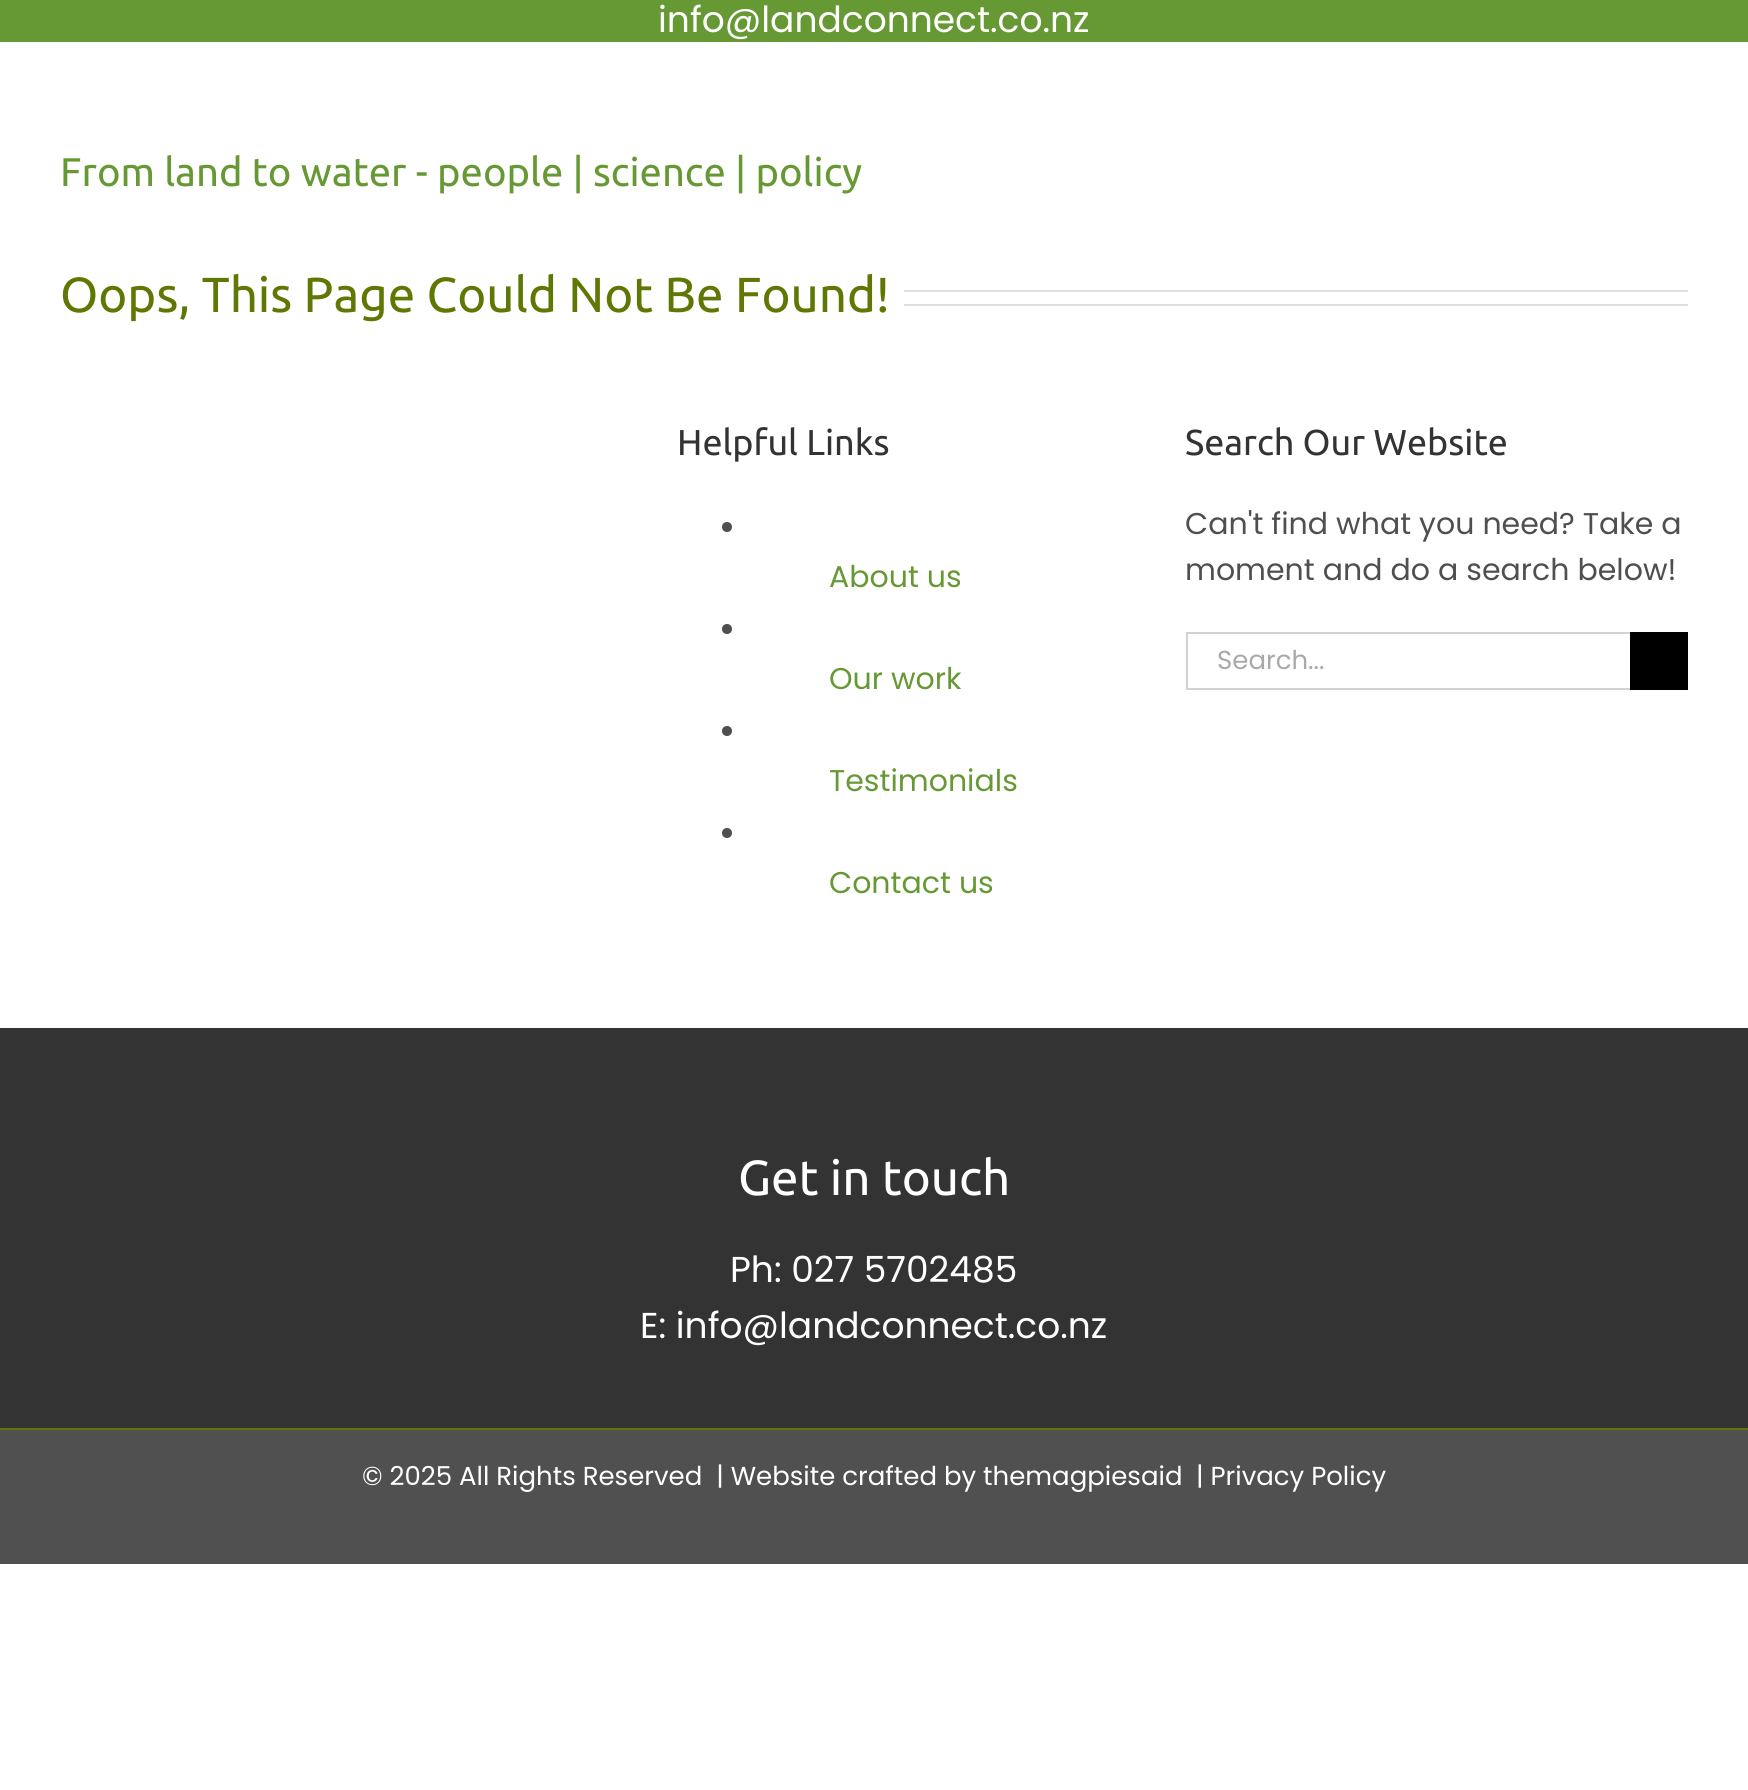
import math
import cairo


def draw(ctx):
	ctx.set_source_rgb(1, 1, 1)
	ctx.paint()
	ctx.set_source_rgb(0.4, 0.6, 0.2)
	ctx.rectangle(0, 0, 1748, 42)
	ctx.fill()
	ctx.select_font_face('Poppins')
	ctx.set_font_size(36)
	ctx.set_source_rgb(1, 1, 1)
	ctx.move_to(658, 32)
	ctx.show_text('info@landconnect.co.nz')
	ctx.select_font_face('Ubuntu')
	ctx.set_font_size(40)
	ctx.set_source_rgb(0.4, 0.6, 0.2)
	ctx.move_to(60, 186)
	ctx.show_text('From land to water - people | science | policy')
	ctx.set_font_size(49.25)
	ctx.set_source_rgb(0.369, 0.471, 0.012)
	ctx.move_to(60, 312)
	ctx.show_text('Oops, This Page Could Not Be Found!')
	ctx.set_source_rgb(0.878, 0.871, 0.871)
	ctx.rectangle(904, 290, 784, 2)
	ctx.fill()
	ctx.rectangle(904, 304, 784, 2)
	ctx.fill()
	ctx.set_font_size(36)
	ctx.set_source_rgb(0.2, 0.2, 0.2)
	ctx.move_to(677, 455)
	ctx.show_text('Helpful Links')
	ctx.set_source_rgb(0.31, 0.31, 0.31)
	ctx.new_path()
	ctx.arc(727, 527, 5, 0, 2 * math.pi)
	ctx.fill()
	ctx.select_font_face('Poppins')
	ctx.set_font_size(30)
	ctx.set_source_rgb(0.4, 0.6, 0.2)
	ctx.move_to(829, 587)
	ctx.show_text('About us')
	ctx.set_source_rgb(0.31, 0.31, 0.31)
	ctx.new_path()
	ctx.arc(727, 629, 5, 0, 2 * math.pi)
	ctx.fill()
	ctx.set_source_rgb(0.4, 0.6, 0.2)
	ctx.move_to(829, 689)
	ctx.show_text('Our work')
	ctx.set_source_rgb(0.31, 0.31, 0.31)
	ctx.new_path()
	ctx.arc(727, 731, 5, 0, 2 * math.pi)
	ctx.fill()
	ctx.set_source_rgb(0.4, 0.6, 0.2)
	ctx.move_to(829, 791)
	ctx.show_text('Testimonials')
	ctx.set_source_rgb(0.31, 0.31, 0.31)
	ctx.new_path()
	ctx.arc(727, 833, 5, 0, 2 * math.pi)
	ctx.fill()
	ctx.set_source_rgb(0.4, 0.6, 0.2)
	ctx.move_to(829, 893)
	ctx.show_text('Contact us')
	ctx.select_font_face('Ubuntu')
	ctx.set_font_size(36)
	ctx.set_source_rgb(0.2, 0.2, 0.2)
	ctx.move_to(1185, 455)
	ctx.show_text('Search Our Website')
	ctx.select_font_face('Poppins')
	ctx.set_font_size(30)
	ctx.set_source_rgb(0.31, 0.31, 0.31)
	ctx.move_to(1185, 534)
	ctx.show_text('Can\'t find what you need? Take a')
	ctx.move_to(1185, 580)
	ctx.show_text('moment and do a search below!')
	ctx.set_source_rgb(0.824, 0.824, 0.824)
	ctx.rectangle(1186, 632, 444, 2)
	ctx.rectangle(1186, 688, 444, 2)
	ctx.rectangle(1186, 632, 2, 58)
	ctx.fill()
	ctx.set_font_size(26)
	ctx.set_source_rgb(0.667, 0.663, 0.663)
	ctx.move_to(1217, 669)
	ctx.show_text('Search...')
	ctx.set_source_rgb(0, 0, 0)
	ctx.rectangle(1630, 632, 58, 58)
	ctx.fill()
	ctx.set_source_rgb(0.2, 0.2, 0.2)
	ctx.rectangle(0, 1028, 1748, 400)
	ctx.fill()
	ctx.select_font_face('Ubuntu')
	ctx.set_font_size(49.25)
	ctx.set_source_rgb(1, 1, 1)
	ctx.move_to(738, 1195)
	ctx.show_text('Get in touch')
	ctx.select_font_face('Poppins')
	ctx.set_font_size(36)
	ctx.move_to(730, 1282)
	ctx.show_text('Ph: 027 5702485')
	ctx.move_to(640, 1338)
	ctx.show_text('E: info@landconnect.co.nz')
	ctx.set_source_rgb(0.314, 0.314, 0.314)
	ctx.rectangle(0, 1430, 1748, 134)
	ctx.fill()
	ctx.set_source_rgb(0.369, 0.471, 0.012)
	ctx.rectangle(0, 1428, 1748, 2)
	ctx.fill()
	ctx.set_font_size(26)
	ctx.set_source_rgb(1, 1, 1)
	ctx.move_to(362, 1485)
	ctx.show_text('© 2025 All Rights Reserved  | Website crafted by themagpiesaid')
	ctx.move_to(1196, 1485)
	ctx.show_text('| Privacy Policy')


surface = cairo.ImageSurface(cairo.FORMAT_RGB24, 1748, 1790)
ctx = cairo.Context(surface)
options = cairo.FontOptions()
options.set_hint_metrics(cairo.HINT_METRICS_OFF)
options.set_hint_style(cairo.HINT_STYLE_NONE)
ctx.set_font_options(options)
ctx.set_miter_limit(4)
draw(ctx)
surface.write_to_png('image.png')
